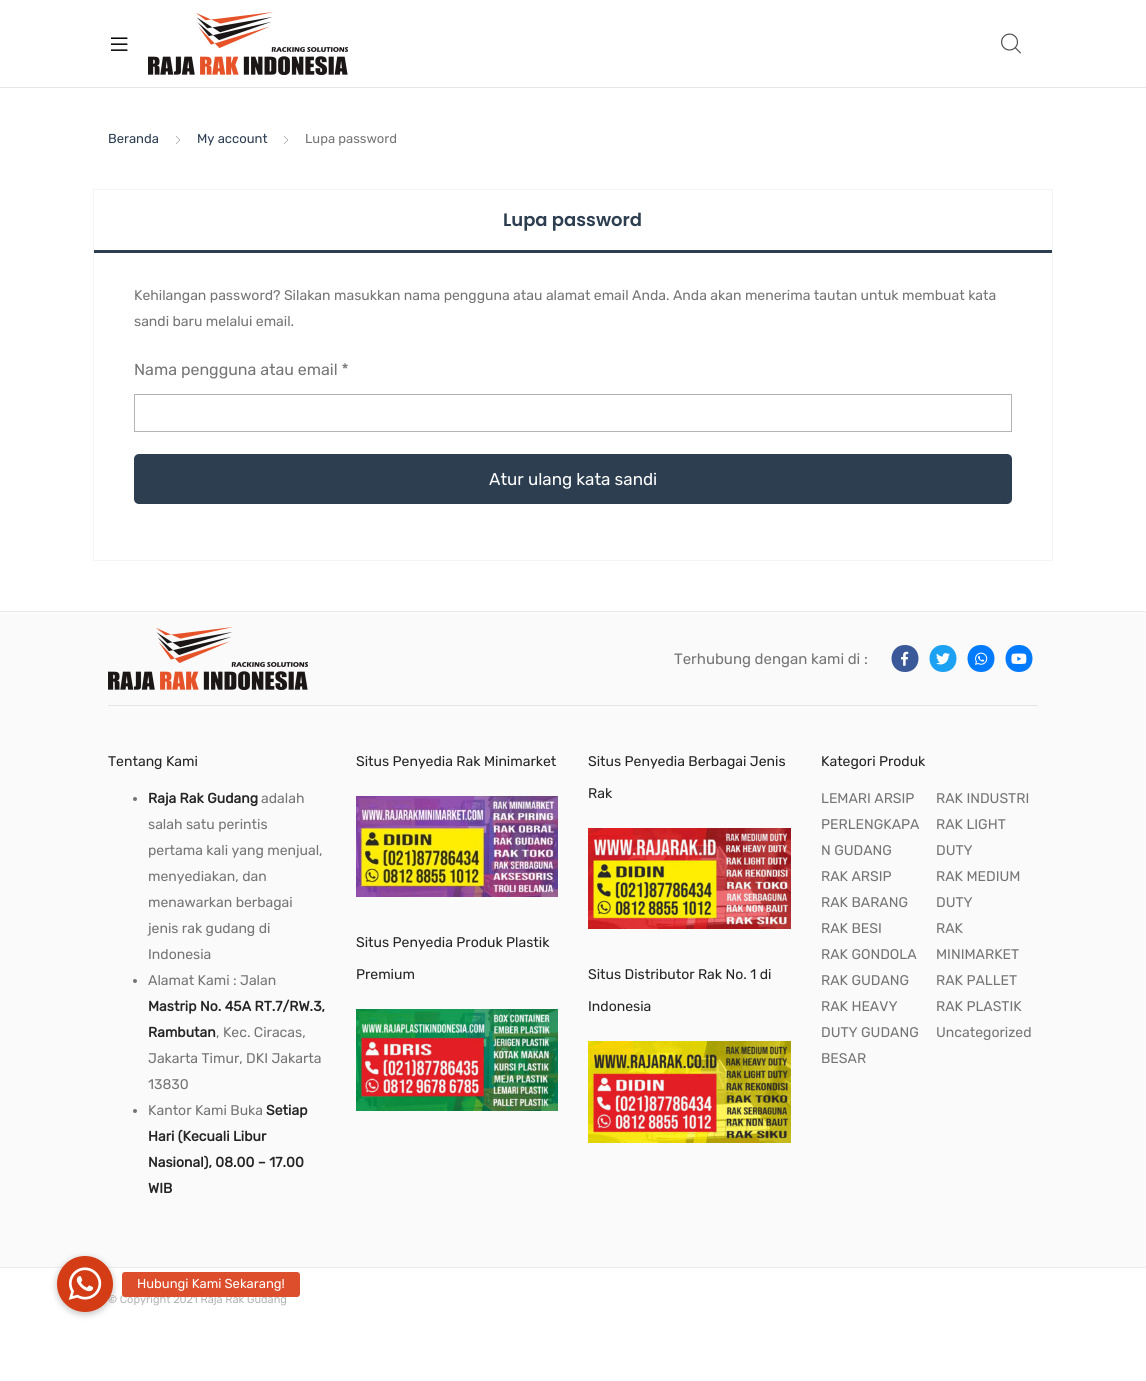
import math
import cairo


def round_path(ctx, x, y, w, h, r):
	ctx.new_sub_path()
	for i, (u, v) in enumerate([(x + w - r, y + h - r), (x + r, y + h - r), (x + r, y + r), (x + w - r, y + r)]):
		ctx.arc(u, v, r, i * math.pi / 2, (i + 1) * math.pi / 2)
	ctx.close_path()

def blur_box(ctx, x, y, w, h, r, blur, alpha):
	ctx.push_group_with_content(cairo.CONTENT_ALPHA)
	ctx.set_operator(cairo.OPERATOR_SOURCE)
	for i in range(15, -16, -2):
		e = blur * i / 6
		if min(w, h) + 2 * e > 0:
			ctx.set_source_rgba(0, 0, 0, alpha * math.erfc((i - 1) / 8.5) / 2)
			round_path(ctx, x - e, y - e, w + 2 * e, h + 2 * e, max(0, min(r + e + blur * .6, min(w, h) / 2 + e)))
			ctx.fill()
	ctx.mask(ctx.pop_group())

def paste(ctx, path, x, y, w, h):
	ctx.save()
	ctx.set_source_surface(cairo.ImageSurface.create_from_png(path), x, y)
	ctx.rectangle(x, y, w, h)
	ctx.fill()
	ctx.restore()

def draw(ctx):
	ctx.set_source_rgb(1, 1, 1)
	ctx.paint()
	ctx.set_source_rgb(0.902, 0.902, 0.902)
	ctx.rectangle(0, 87, 1146, 1)
	ctx.fill()
	paste(ctx, 'media/1.png', 111, 37, 17, 14)
	paste(ctx, 'media/2.png', 148, 12, 200, 63)
	paste(ctx, 'media/3.png', 1001, 33, 20, 21)
	ctx.select_font_face('Rubik Light')
	ctx.set_font_size(13)
	ctx.set_source_rgb(0.173, 0.243, 0.314)
	ctx.move_to(108, 143)
	ctx.show_text('Beranda')
	paste(ctx, 'media/4.png', 175, 136, 5, 8)
	ctx.move_to(197, 143)
	ctx.show_text('My account')
	paste(ctx, 'media/4.png', 283, 136, 5, 8)
	ctx.set_source_rgb(0.459, 0.459, 0.459)
	ctx.move_to(305, 143)
	ctx.show_text('Lupa password')
	ctx.rectangle(93.5, 189.5, 959, 371)
	ctx.set_source_rgb(0.957, 0.957, 0.957)
	ctx.set_line_width(1)
	ctx.stroke()
	ctx.set_source_rgb(0.173, 0.243, 0.314)
	ctx.rectangle(94, 250, 958, 3)
	ctx.fill()
	ctx.select_font_face('Poppins SemiBold')
	ctx.set_font_size(18)
	ctx.move_to(503, 226)
	ctx.show_text('Lupa password')
	ctx.select_font_face('Rubik Light')
	ctx.set_font_size(14)
	ctx.set_source_rgb(0.459, 0.459, 0.459)
	ctx.move_to(134, 300)
	ctx.show_text('Kehilangan password? Silakan masukkan nama pengguna atau alamat email Anda. Anda akan menerima tautan untuk membuat kata')
	ctx.move_to(134, 326)
	ctx.show_text('sandi baru melalui email.')
	ctx.set_font_size(16)
	ctx.move_to(134, 375)
	ctx.show_text('Nama pengguna atau email *')
	ctx.rectangle(134.5, 394.5, 877, 37)
	ctx.set_source_rgb(0.706, 0.706, 0.706)
	ctx.stroke()
	ctx.set_source_rgb(0.173, 0.243, 0.314)
	round_path(ctx, 134, 454, 878, 50, 5)
	ctx.fill()
	ctx.set_font_size(17)
	ctx.set_source_rgb(1, 1, 1)
	ctx.move_to(489, 485)
	ctx.show_text('Atur ulang kata sandi')
	ctx.set_source_rgb(0.98, 0.98, 0.98)
	ctx.rectangle(0, 612, 1146, 655)
	ctx.fill()
	ctx.set_source_rgb(0.922, 0.922, 0.922)
	ctx.rectangle(0, 611, 1146, 1)
	ctx.fill()
	paste(ctx, 'media/5.png', 108, 627, 200, 63)
	ctx.set_font_size(15)
	ctx.set_source_rgb(0.459, 0.459, 0.459)
	ctx.move_to(674, 664)
	ctx.show_text('Terhubung dengan kami di :')
	ctx.set_source_rgb(0.231, 0.349, 0.596)
	ctx.new_path()
	ctx.move_to(905, 645)
	ctx.curve_to(887, 645, 887, 672, 905, 672)
	ctx.curve_to(923, 672, 923, 645, 905, 645)
	ctx.close_path()
	ctx.fill()
	paste(ctx, 'media/6.png', 901, 651, 8, 15)
	ctx.set_source_rgb(0.114, 0.631, 0.949)
	ctx.new_path()
	ctx.move_to(943, 645)
	ctx.curve_to(925, 645, 925, 672, 943, 672)
	ctx.curve_to(961, 672, 961, 645, 943, 645)
	ctx.close_path()
	ctx.fill()
	paste(ctx, 'media/7.png', 936, 653, 14, 12)
	ctx.set_source_rgb(0, 0.482, 1)
	ctx.new_path()
	ctx.move_to(981, 645)
	ctx.curve_to(963, 645, 963, 672, 981, 672)
	ctx.curve_to(999, 672, 999, 645, 981, 645)
	ctx.close_path()
	ctx.fill()
	paste(ctx, 'media/8.png', 975, 652, 13, 13)
	ctx.new_path()
	ctx.move_to(1019, 645)
	ctx.curve_to(1001, 645, 1001, 672, 1019, 672)
	ctx.curve_to(1037, 672, 1037, 645, 1019, 645)
	ctx.close_path()
	ctx.fill()
	paste(ctx, 'media/9.png', 1011, 653, 16, 11)
	ctx.set_source_rgb(0.898, 0.898, 0.898)
	ctx.rectangle(108, 705, 930, 1)
	ctx.fill()
	ctx.set_font_size(14)
	ctx.set_source_rgb(0.145, 0.145, 0.145)
	ctx.move_to(108, 766)
	ctx.show_text('Tentang Kami')
	ctx.set_source_rgb(0.459, 0.459, 0.459)
	ctx.new_path()
	ctx.arc(135, 799, 2, 0, 2 * math.pi)
	ctx.fill()
	ctx.select_font_face('Rubik', cairo.FONT_SLANT_NORMAL, cairo.FONT_WEIGHT_BOLD)
	ctx.set_source_rgb(0.145, 0.145, 0.145)
	ctx.move_to(148, 803)
	ctx.show_text('Raja Rak Gudang')
	ctx.select_font_face('Rubik Light')
	ctx.set_source_rgb(0.459, 0.459, 0.459)
	for x, y, s in [
		(261, 803, 'adalah'),
		(148, 829, 'salah satu perintis'),
		(148, 855, 'pertama kali yang menjual,'),
		(148, 881, 'menyediakan, dan'),
		(148, 907, 'menawarkan berbagai'),
		(148, 933, 'jenis rak gudang di'),
		(148, 959, 'Indonesia'),
	]:
		ctx.move_to(x, y)
		ctx.show_text(s)
	ctx.new_path()
	ctx.arc(135, 981, 2, 0, 2 * math.pi)
	ctx.fill()
	ctx.move_to(148, 985)
	ctx.show_text('Alamat Kami : Jalan')
	ctx.select_font_face('Rubik', cairo.FONT_SLANT_NORMAL, cairo.FONT_WEIGHT_BOLD)
	ctx.set_source_rgb(0.145, 0.145, 0.145)
	ctx.move_to(148, 1011)
	ctx.show_text('Mastrip No. 45A RT.7/RW.3,')
	ctx.move_to(148, 1037)
	ctx.show_text('Rambutan')
	ctx.select_font_face('Rubik Light')
	ctx.set_source_rgb(0.459, 0.459, 0.459)
	for x, y, s in [
		(216, 1037, ', Kec. Ciracas,'),
		(148, 1063, 'Jakarta Timur, DKI Jakarta'),
		(148, 1089, '13830'),
	]:
		ctx.move_to(x, y)
		ctx.show_text(s)
	ctx.new_path()
	ctx.arc(135, 1111, 2, 0, 2 * math.pi)
	ctx.fill()
	ctx.move_to(148, 1115)
	ctx.show_text('Kantor Kami Buka')
	ctx.select_font_face('Rubik', cairo.FONT_SLANT_NORMAL, cairo.FONT_WEIGHT_BOLD)
	ctx.set_source_rgb(0.145, 0.145, 0.145)
	for x, y, s in [
		(266, 1115, 'Setiap'),
		(148, 1141, 'Hari (Kecuali Libur'),
		(148, 1167, 'Nasional), 08.00 – 17.00'),
		(148, 1193, 'WIB'),
	]:
		ctx.move_to(x, y)
		ctx.show_text(s)
	ctx.select_font_face('Rubik Light')
	ctx.move_to(356, 766)
	ctx.show_text('Situs Penyedia Rak Minimarket')
	paste(ctx, 'media/10.png', 356, 796, 202, 101)
	ctx.move_to(356, 947)
	ctx.show_text('Situs Penyedia Produk Plastik')
	ctx.move_to(356, 979)
	ctx.show_text('Premium')
	paste(ctx, 'media/11.png', 356, 1009, 202, 102)
	ctx.move_to(588, 766)
	ctx.show_text('Situs Penyedia Berbagai Jenis')
	ctx.move_to(588, 798)
	ctx.show_text('Rak')
	paste(ctx, 'media/12.png', 588, 828, 203, 101)
	ctx.move_to(588, 979)
	ctx.show_text('Situs Distributor Rak No. 1 di')
	ctx.move_to(588, 1011)
	ctx.show_text('Indonesia')
	paste(ctx, 'media/13.png', 588, 1041, 203, 102)
	ctx.move_to(821, 766)
	ctx.show_text('Kategori Produk')
	ctx.set_source_rgb(0.459, 0.459, 0.459)
	for x, y, s in [
		(821, 803, 'LEMARI ARSIP'),
		(936, 803, 'RAK INDUSTRI'),
		(821, 829, 'PERLENGKAPA'),
		(821, 855, 'N GUDANG'),
		(936, 829, 'RAK LIGHT'),
		(936, 855, 'DUTY'),
		(821, 881, 'RAK ARSIP'),
		(936, 881, 'RAK MEDIUM'),
		(936, 907, 'DUTY'),
		(821, 907, 'RAK BARANG'),
		(821, 933, 'RAK BESI'),
		(936, 933, 'RAK'),
		(936, 959, 'MINIMARKET'),
		(821, 959, 'RAK GONDOLA'),
		(821, 985, 'RAK GUDANG'),
		(936, 985, 'RAK PALLET'),
		(821, 1011, 'RAK HEAVY'),
		(821, 1037, 'DUTY GUDANG'),
		(821, 1063, 'BESAR'),
		(936, 1011, 'RAK PLASTIK'),
		(936, 1037, 'Uncategorized'),
	]:
		ctx.move_to(x, y)
		ctx.show_text(s)
	ctx.set_source_rgb(0.922, 0.922, 0.922)
	ctx.rectangle(0, 1267, 1146, 1)
	ctx.fill()
	ctx.set_font_size(11)
	ctx.set_source_rgb(0.706, 0.706, 0.706)
	ctx.move_to(108, 1303)
	ctx.show_text('© Copyright 2021 Raja Rak Gudang')
	ctx.set_source_rgb(0, 0, 0)
	blur_box(ctx, 56, 1257, 58, 58, 29, 3, 0.2)
	ctx.set_source_rgb(0.827, 0.235, 0.082)
	ctx.arc(85, 1284, 28, 0, 2 * math.pi)
	ctx.fill()
	paste(ctx, 'media/14.png', 68, 1267, 34, 33)
	ctx.set_source_rgb(0.867, 0.31, 0.173)
	round_path(ctx, 122, 1272, 178, 25, 3)
	ctx.fill()
	ctx.set_font_size(13)
	ctx.set_source_rgb(1, 1, 1)
	ctx.move_to(137, 1288)
	ctx.show_text('Hubungi Kami Sekarang!')


surface = cairo.ImageSurface(cairo.FORMAT_RGB24, 1146, 1381)
ctx = cairo.Context(surface)
options = cairo.FontOptions()
options.set_hint_metrics(cairo.HINT_METRICS_OFF)
options.set_hint_style(cairo.HINT_STYLE_NONE)
ctx.set_font_options(options)
ctx.set_miter_limit(4)
draw(ctx)
surface.write_to_png('image.png')
